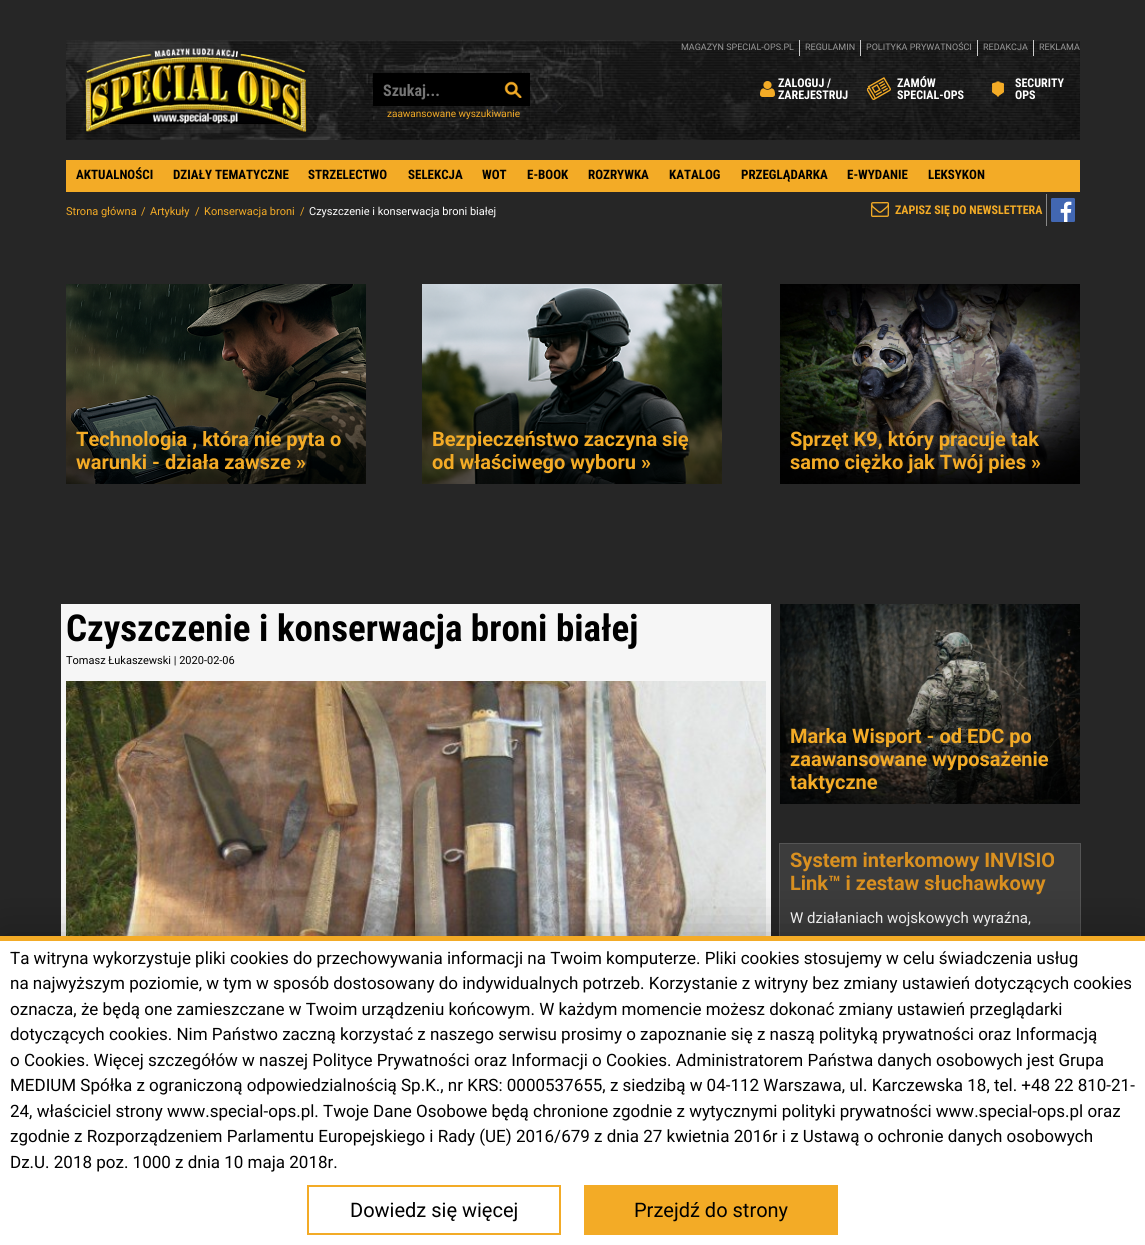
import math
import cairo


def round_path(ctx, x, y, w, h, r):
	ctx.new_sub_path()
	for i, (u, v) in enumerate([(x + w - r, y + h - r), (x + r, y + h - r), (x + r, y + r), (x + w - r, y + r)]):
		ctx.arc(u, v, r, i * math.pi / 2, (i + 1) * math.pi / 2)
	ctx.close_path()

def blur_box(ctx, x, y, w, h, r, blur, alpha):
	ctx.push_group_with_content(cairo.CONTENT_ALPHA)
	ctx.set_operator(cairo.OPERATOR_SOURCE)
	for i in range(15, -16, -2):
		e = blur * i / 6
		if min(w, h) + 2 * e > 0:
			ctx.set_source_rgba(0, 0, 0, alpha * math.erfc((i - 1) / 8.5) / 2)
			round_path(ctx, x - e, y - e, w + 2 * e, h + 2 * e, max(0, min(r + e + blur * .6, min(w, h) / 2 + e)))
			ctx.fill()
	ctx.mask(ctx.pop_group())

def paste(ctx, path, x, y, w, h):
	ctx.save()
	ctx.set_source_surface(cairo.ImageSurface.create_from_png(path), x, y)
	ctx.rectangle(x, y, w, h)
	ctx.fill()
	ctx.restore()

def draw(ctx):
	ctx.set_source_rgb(0.149, 0.149, 0.149)
	ctx.paint()
	paste(ctx, 'media/1.png', 66, 40, 1014, 100)
	ctx.set_source_rgb(0.8, 0.8, 0.8)
	ctx.rectangle(799, 40, 1, 16)
	ctx.fill()
	ctx.select_font_face('Roboto')
	ctx.set_font_size(9)
	ctx.set_source_rgb(0.6, 0.6, 0.6)
	ctx.move_to(681, 50)
	ctx.show_text('MAGAZYN SPECIAL-OPS.PL')
	ctx.set_source_rgb(0.8, 0.8, 0.8)
	ctx.rectangle(860, 40, 1, 16)
	ctx.fill()
	ctx.set_source_rgb(0.6, 0.6, 0.6)
	ctx.move_to(805, 50)
	ctx.show_text('REGULAMIN')
	ctx.set_source_rgb(0.8, 0.8, 0.8)
	ctx.rectangle(977, 40, 1, 16)
	ctx.fill()
	ctx.set_source_rgb(0.6, 0.6, 0.6)
	ctx.move_to(866, 50)
	ctx.show_text('POLITYKA PRYWATNOŚCI')
	ctx.set_source_rgb(0.8, 0.8, 0.8)
	ctx.rectangle(1033, 40, 1, 16)
	ctx.fill()
	ctx.set_source_rgb(0.6, 0.6, 0.6)
	ctx.move_to(983, 50)
	ctx.show_text('REDAKCJA')
	ctx.move_to(1039, 50)
	ctx.show_text('REKLAMA')
	paste(ctx, 'media/2.png', 85, 48, 223, 85)
	ctx.set_source_rgb(0, 0, 0)
	ctx.rectangle(373, 73, 157, 33)
	ctx.fill()
	ctx.select_font_face('Roboto Condensed', cairo.FONT_SLANT_NORMAL, cairo.FONT_WEIGHT_BOLD)
	ctx.set_font_size(16)
	ctx.set_source_rgb(0.459, 0.459, 0.459)
	ctx.move_to(383, 96)
	ctx.show_text('Szukaj...')
	paste(ctx, 'media/3.png', 504, 81, 18, 17)
	ctx.select_font_face('Roboto')
	ctx.set_font_size(10)
	ctx.set_source_rgb(0.953, 0.671, 0.149)
	ctx.move_to(387, 117)
	ctx.show_text('zaawansowane wyszukiwanie')
	paste(ctx, 'media/4.png', 760, 81, 15, 16)
	ctx.select_font_face('Roboto Condensed', cairo.FONT_SLANT_NORMAL, cairo.FONT_WEIGHT_BOLD)
	ctx.set_font_size(12)
	ctx.set_source_rgb(1, 1, 1)
	ctx.move_to(778, 87)
	ctx.show_text('ZALOGUJ /')
	ctx.move_to(778, 99)
	ctx.show_text('ZAREJESTRUJ')
	paste(ctx, 'media/5.png', 867, 77, 24, 23)
	ctx.move_to(897, 87)
	ctx.show_text('ZAMÓW')
	ctx.move_to(897, 99)
	ctx.show_text('SPECIAL-OPS')
	paste(ctx, 'media/6.png', 992, 81, 12, 16)
	ctx.move_to(1015, 87)
	ctx.show_text('SECURITY')
	ctx.move_to(1015, 99)
	ctx.show_text('OPS')
	ctx.set_source_rgb(0.953, 0.671, 0.149)
	ctx.rectangle(66, 160, 1014, 32)
	ctx.fill()
	ctx.set_font_size(13)
	ctx.set_source_rgb(0, 0, 0)
	for x, y, s in [
		(76, 179, 'AKTUALNOŚCI'),
		(173, 179, 'DZIAŁY TEMATYCZNE'),
		(308, 179, 'STRZELECTWO'),
		(408, 179, 'SELEKCJA'),
		(482, 179, 'WOT'),
		(527, 179, 'E-BOOK'),
		(588, 179, 'ROZRYWKA'),
		(669, 179, 'KATALOG'),
		(741, 179, 'PRZEGLĄDARKA'),
		(847, 179, 'E-WYDANIE'),
		(928, 179, 'LEKSYKON'),
	]:
		ctx.move_to(x, y)
		ctx.show_text(s)
	ctx.select_font_face('Roboto')
	ctx.set_font_size(11)
	ctx.set_source_rgb(0.953, 0.671, 0.149)
	for x, y, s in [
		(66, 215, 'Strona główna'),
		(141, 215, '/'),
		(150, 215, 'Artykuły'),
		(195, 215, '/'),
		(204, 215, 'Konserwacja broni'),
		(300, 215, '/'),
	]:
		ctx.move_to(x, y)
		ctx.show_text(s)
	ctx.set_source_rgb(1, 1, 1)
	ctx.move_to(309, 215)
	ctx.show_text('Czyszczenie i konserwacja broni białej')
	paste(ctx, 'media/7.png', 871, 202, 18, 15)
	ctx.select_font_face('Roboto Condensed', cairo.FONT_SLANT_NORMAL, cairo.FONT_WEIGHT_BOLD)
	ctx.set_font_size(12)
	ctx.set_source_rgb(0.953, 0.671, 0.149)
	ctx.move_to(895, 214)
	ctx.show_text('ZAPISZ SIĘ DO NEWSLETTERA')
	paste(ctx, 'media/8.png', 1051, 198, 24, 24)
	ctx.set_source_rgb(0.533, 0.533, 0.533)
	ctx.rectangle(1046, 194, 1, 32)
	ctx.fill()
	paste(ctx, 'media/9.png', 66, 284, 300, 200)
	ctx.select_font_face('Roboto', cairo.FONT_SLANT_NORMAL, cairo.FONT_WEIGHT_BOLD)
	ctx.set_font_size(20)
	ctx.set_source_rgb(0.953, 0.671, 0.149)
	ctx.move_to(76, 446)
	ctx.show_text('Technologia , która nie pyta o')
	ctx.move_to(76, 469)
	ctx.show_text('warunki - działa zawsze »')
	paste(ctx, 'media/10.png', 422, 284, 300, 200)
	ctx.move_to(432, 446)
	ctx.show_text('Bezpieczeństwo zaczyna się')
	ctx.move_to(432, 469)
	ctx.show_text('od właściwego wyboru »')
	paste(ctx, 'media/11.png', 780, 284, 300, 200)
	ctx.move_to(790, 446)
	ctx.show_text('Sprzęt K9, który pracuje tak')
	ctx.move_to(790, 469)
	ctx.show_text('samo ciężko jak Twój pies »')
	ctx.set_source_rgb(0.961, 0.961, 0.961)
	ctx.rectangle(61, 604, 710, 332)
	ctx.fill()
	ctx.select_font_face('Roboto Condensed', cairo.FONT_SLANT_NORMAL, cairo.FONT_WEIGHT_BOLD)
	ctx.set_font_size(37)
	ctx.set_source_rgb(0, 0, 0)
	ctx.move_to(66, 641)
	ctx.show_text('Czyszczenie i konserwacja broni białej')
	ctx.select_font_face('Roboto')
	ctx.set_font_size(11)
	ctx.move_to(66, 664)
	ctx.show_text('Tomasz Łukaszewski | 2020-02-06')
	paste(ctx, 'media/12.png', 66, 681, 700, 255)
	paste(ctx, 'media/13.png', 780, 604, 300, 200)
	ctx.select_font_face('Roboto', cairo.FONT_SLANT_NORMAL, cairo.FONT_WEIGHT_BOLD)
	ctx.set_font_size(20)
	ctx.set_source_rgb(0.953, 0.671, 0.149)
	for x, y, s in [
		(790, 743, 'Marka Wisport - od EDC po'),
		(790, 766, 'zaawansowane wyposażenie'),
		(790, 789, 'taktyczne'),
	]:
		ctx.move_to(x, y)
		ctx.show_text(s)
	ctx.set_source_rgb(0.235, 0.235, 0.235)
	ctx.rectangle(780, 844, 300, 92)
	ctx.fill()
	ctx.rectangle(779.5, 843.5, 301, 201)
	ctx.set_source_rgb(0.333, 0.333, 0.333)
	ctx.set_line_width(1)
	ctx.stroke()
	ctx.set_source_rgb(0.851, 0.565, 0.125)
	ctx.move_to(790, 867)
	ctx.show_text('System interkomowy INVISIO')
	ctx.move_to(790, 890)
	ctx.show_text('Link™ i zestaw słuchawkowy')
	ctx.select_font_face('Roboto')
	ctx.set_font_size(15)
	ctx.set_source_rgb(1, 1, 1)
	ctx.move_to(790, 923)
	ctx.show_text('W działaniach wojskowych wyraźna,')
	ctx.set_source_rgb(0, 0, 0)
	blur_box(ctx, 0, 936, 1145, 309, 0, 25, 0.3)
	ctx.set_source_rgb(1, 1, 1)
	ctx.rectangle(0, 941, 1145, 304)
	ctx.fill()
	ctx.set_source_rgb(0.953, 0.671, 0.149)
	ctx.rectangle(0, 936, 1145, 5)
	ctx.fill()
	ctx.set_font_size(17)
	ctx.set_source_rgb(0, 0, 0)
	for x, y, s in [
		(10, 964, 'Ta witryna wykorzystuje pliki cookies do przechowywania informacji na Twoim komputerze. Pliki cookies stosujemy w celu świadczenia usług'),
		(10, 989, 'na najwyższym poziomie, w tym w sposób dostosowany do indywidualnych potrzeb. Korzystanie z witryny bez zmiany ustawień dotyczących cookies'),
		(10, 1015, 'oznacza, że będą one zamieszczane w Twoim urządzeniu końcowym. W każdym momencie możesz dokonać zmiany ustawień przeglądarki'),
		(10, 1040, 'dotyczących cookies. Nim Państwo zaczną korzystać z naszego serwisu prosimy o zapoznanie się z naszą polityką prywatności oraz Informacją'),
		(10, 1066, 'o Cookies. Więcej szczegółów w naszej Polityce Prywatności oraz Informacji o Cookies. Administratorem Państwa danych osobowych jest Grupa'),
		(10, 1091, 'MEDIUM Spółka z ograniczoną odpowiedzialnością Sp.K., nr KRS: 0000537655, z siedzibą w 04-112 Warszawa, ul. Karczewska 18, tel. +48 22 810-21-'),
		(10, 1117, '24, właściciel strony www.special-ops.pl. Twoje Dane Osobowe będą chronione zgodnie z wytycznymi polityki prywatności www.special-ops.pl oraz'),
		(10, 1142, 'zgodnie z Rozporządzeniem Parlamentu Europejskiego i Rady (UE) 2016/679 z dnia 27 kwietnia 2016r i z Ustawą o ochronie danych osobowych'),
		(10, 1168, 'Dz.U. 2018 poz. 1000 z dnia 10 maja 2018r.'),
	]:
		ctx.move_to(x, y)
		ctx.show_text(s)
	ctx.rectangle(308, 1186, 252, 48)
	ctx.set_source_rgb(0.953, 0.671, 0.149)
	ctx.set_line_width(2)
	ctx.stroke()
	ctx.set_font_size(20)
	ctx.set_source_rgb(0, 0, 0)
	ctx.move_to(350, 1217)
	ctx.show_text('Dowiedz się więcej')
	ctx.set_source_rgb(0.953, 0.671, 0.149)
	ctx.rectangle(584, 1185, 254, 50)
	ctx.fill()
	ctx.set_source_rgb(0, 0, 0)
	ctx.move_to(634, 1217)
	ctx.show_text('Przejdź do strony')


surface = cairo.ImageSurface(cairo.FORMAT_RGB24, 1145, 1245)
ctx = cairo.Context(surface)
options = cairo.FontOptions()
options.set_hint_metrics(cairo.HINT_METRICS_OFF)
options.set_hint_style(cairo.HINT_STYLE_NONE)
ctx.set_font_options(options)
ctx.set_miter_limit(4)
draw(ctx)
surface.write_to_png('image.png')
